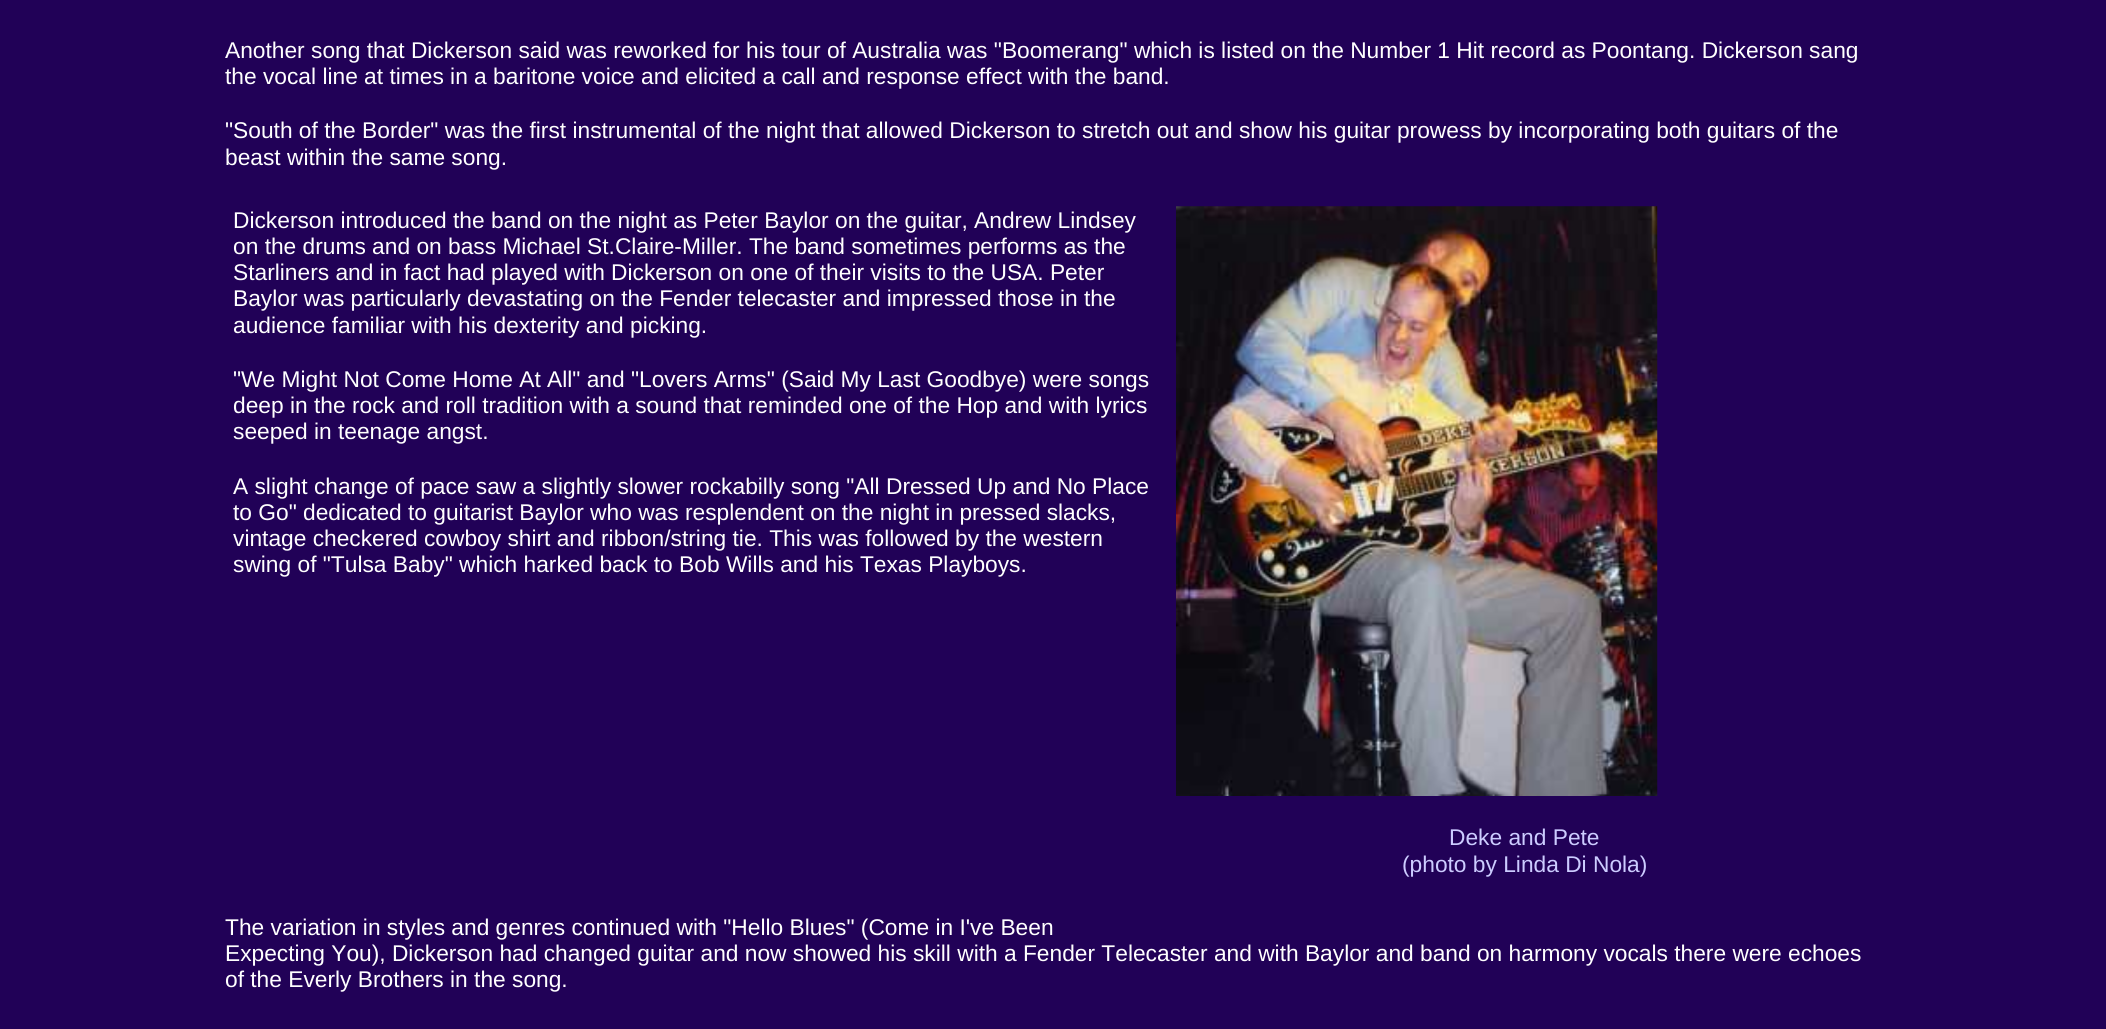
import math
import cairo


def paste(ctx, path, x, y, w, h):
	ctx.save()
	ctx.set_source_surface(cairo.ImageSurface.create_from_png(path), x, y)
	ctx.rectangle(x, y, w, h)
	ctx.fill()
	ctx.restore()

def draw(ctx):
	ctx.set_source_rgb(0.129, 0.004, 0.341)
	ctx.paint()
	ctx.select_font_face('Liberation Sans')
	ctx.set_font_size(22.75)
	ctx.set_source_rgb(1, 1, 1)
	for x, y, s in [
		(225, 58, 'Another song that Dickerson said was reworked for his tour of Australia was "Boomerang" which is listed on the Number 1 Hit record as Poontang. Dickerson sang'),
		(225, 84, 'the vocal line at times in a baritone voice and elicited a call and response effect with the band.'),
		(225, 138, '"South of the Border" was the first instrumental of the night that allowed Dickerson to stretch out and show his guitar prowess by incorporating both guitars of the'),
		(225, 165, 'beast within the same song.'),
		(233, 228, 'Dickerson introduced the band on the night as Peter Baylor on the guitar, Andrew Lindsey'),
		(233, 254, 'on the drums and on bass Michael St.Claire-Miller. The band sometimes performs as the'),
		(233, 280, 'Starliners and in fact had played with Dickerson on one of their visits to the USA. Peter'),
		(233, 306, 'Baylor was particularly devastating on the Fender telecaster and impressed those in the'),
		(233, 333, 'audience familiar with his dexterity and picking.'),
		(233, 387, '"We Might Not Come Home At All" and "Lovers Arms" (Said My Last Goodbye) were songs'),
		(233, 413, 'deep in the rock and roll tradition with a sound that reminded one of the Hop and with lyrics'),
		(233, 439, 'seeped in teenage angst.'),
		(233, 494, 'A slight change of pace saw a slightly slower rockabilly song "All Dressed Up and No Place'),
		(233, 520, 'to Go" dedicated to guitarist Baylor who was resplendent on the night in pressed slacks,'),
		(233, 546, 'vintage checkered cowboy shirt and ribbon/string tie. This was followed by the western'),
		(233, 572, 'swing of "Tulsa Baby" which harked back to Bob Wills and his Texas Playboys.'),
	]:
		ctx.move_to(x, y)
		ctx.show_text(s)
	paste(ctx, 'media/1.png', 1176, 206, 482, 590)
	ctx.set_source_rgb(0.8, 0.8, 1)
	ctx.move_to(1449, 845)
	ctx.show_text('Deke and Pete')
	ctx.move_to(1402, 872)
	ctx.show_text('(photo by Linda Di Nola)')
	ctx.set_source_rgb(1, 1, 1)
	for x, y, s in [
		(225, 935, 'The variation in styles and genres continued with "Hello Blues" (Come in I\'ve Been'),
		(225, 961, 'Expecting You), Dickerson had changed guitar and now showed his skill with a Fender Telecaster and with Baylor and band on harmony vocals there were echoes'),
		(225, 987, 'of the Everly Brothers in the song.'),
	]:
		ctx.move_to(x, y)
		ctx.show_text(s)


surface = cairo.ImageSurface(cairo.FORMAT_RGB24, 2106, 1029)
ctx = cairo.Context(surface)
options = cairo.FontOptions()
options.set_hint_metrics(cairo.HINT_METRICS_OFF)
options.set_hint_style(cairo.HINT_STYLE_NONE)
ctx.set_font_options(options)
ctx.set_miter_limit(4)
draw(ctx)
surface.write_to_png('image.png')
